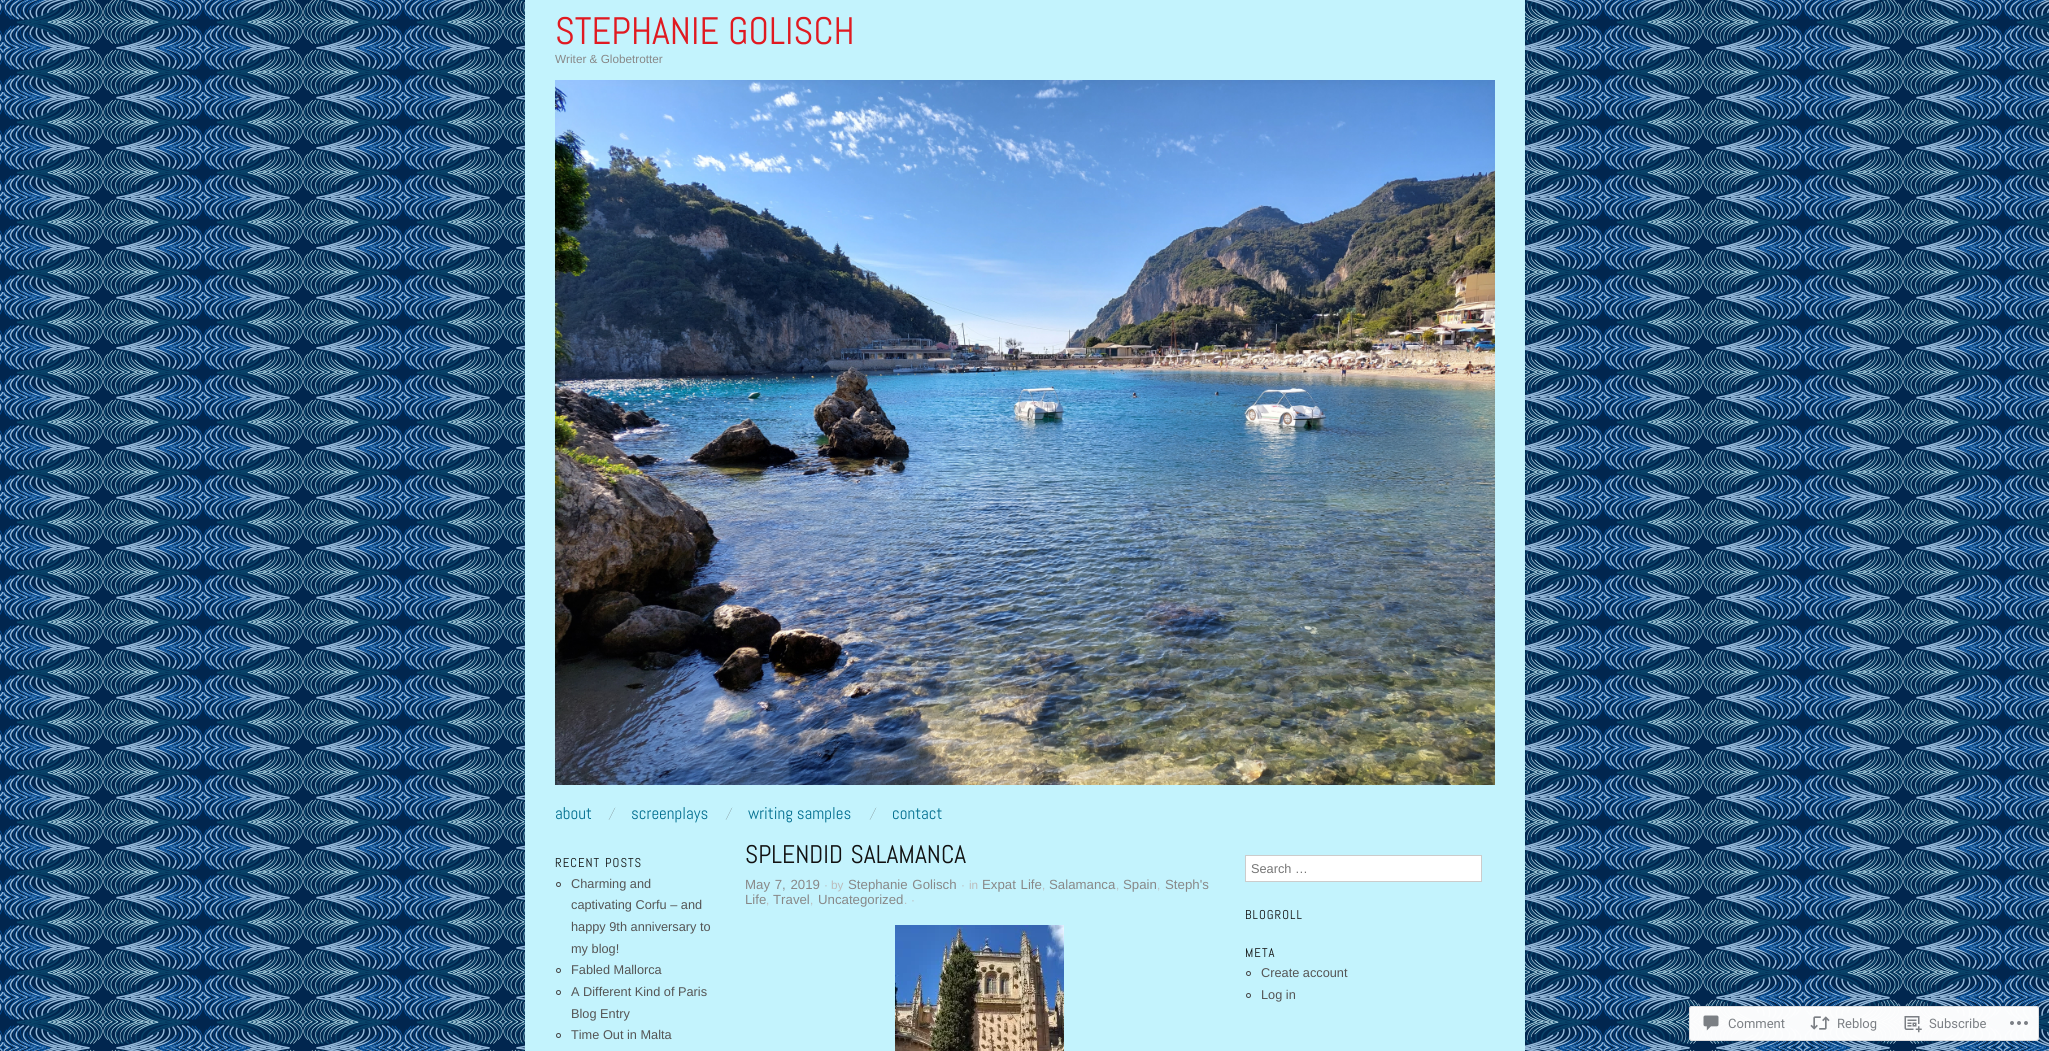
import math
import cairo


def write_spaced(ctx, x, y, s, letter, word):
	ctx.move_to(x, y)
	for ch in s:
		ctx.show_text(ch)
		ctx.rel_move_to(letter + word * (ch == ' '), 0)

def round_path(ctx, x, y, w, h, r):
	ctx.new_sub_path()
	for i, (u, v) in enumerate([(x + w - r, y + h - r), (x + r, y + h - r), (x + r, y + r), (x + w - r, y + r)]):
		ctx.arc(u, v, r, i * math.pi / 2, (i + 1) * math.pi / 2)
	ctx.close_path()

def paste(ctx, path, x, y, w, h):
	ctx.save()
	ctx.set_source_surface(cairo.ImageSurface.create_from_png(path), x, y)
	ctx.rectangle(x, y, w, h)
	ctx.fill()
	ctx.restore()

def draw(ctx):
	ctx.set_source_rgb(1, 1, 1)
	ctx.paint()
	paste(ctx, 'media/1.png', 0, 0, 2049, 1051)
	ctx.set_source_rgb(0.765, 0.953, 0.992)
	ctx.rectangle(525, 0, 1000, 1051)
	ctx.fill()
	ctx.select_font_face('Abel')
	ctx.set_font_size(38.25)
	ctx.set_source_rgb(0.878, 0.102, 0.129)
	ctx.move_to(555, 44)
	ctx.show_text('STEPHANIE GOLISCH')
	ctx.select_font_face('Liberation Sans')
	ctx.set_font_size(11.75)
	ctx.set_source_rgb(0.533, 0.533, 0.533)
	ctx.move_to(555, 63)
	ctx.show_text('Writer & Globetrotter')
	paste(ctx, 'media/2.png', 555, 80, 940, 705)
	ctx.select_font_face('Abel')
	ctx.set_font_size(17)
	ctx.set_source_rgb(0.008, 0.435, 0.565)
	ctx.move_to(555, 819)
	ctx.show_text('about')
	paste(ctx, 'media/3.png', 608, 807, 8, 13)
	ctx.move_to(631, 819)
	ctx.show_text('screenplays')
	paste(ctx, 'media/3.png', 725, 807, 8, 13)
	ctx.move_to(748, 819)
	ctx.show_text('writing samples')
	paste(ctx, 'media/3.png', 869, 807, 8, 13)
	ctx.move_to(892, 819)
	ctx.show_text('contact')
	ctx.set_font_size(12.75)
	ctx.set_source_rgb(0.067, 0.067, 0.067)
	write_spaced(ctx, 555, 867, 'RECENT POSTS', 1, 1)
	ctx.new_path()
	ctx.arc(558.5, 884.5, 2, 0, 2 * math.pi)
	ctx.set_source_rgb(0.267, 0.267, 0.267)
	ctx.set_line_width(1)
	ctx.stroke()
	ctx.select_font_face('Liberation Sans')
	ctx.set_source_rgb(0.333, 0.333, 0.333)
	for x, y, s in [
		(571, 888, 'Charming and'),
		(571, 909, 'captivating Corfu – and'),
		(571, 931, 'happy 9th anniversary to'),
		(571, 953, 'my blog!'),
	]:
		ctx.move_to(x, y)
		ctx.show_text(s)
	ctx.new_path()
	ctx.arc(558.5, 970.5, 2, 0, 2 * math.pi)
	ctx.set_source_rgb(0.267, 0.267, 0.267)
	ctx.stroke()
	ctx.set_source_rgb(0.333, 0.333, 0.333)
	ctx.move_to(571, 974)
	ctx.show_text('Fabled Mallorca')
	ctx.new_path()
	ctx.arc(558.5, 992.5, 2, 0, 2 * math.pi)
	ctx.set_source_rgb(0.267, 0.267, 0.267)
	ctx.stroke()
	ctx.set_source_rgb(0.333, 0.333, 0.333)
	ctx.move_to(571, 996)
	ctx.show_text('A Different Kind of Paris')
	ctx.move_to(571, 1018)
	ctx.show_text('Blog Entry')
	ctx.new_path()
	ctx.arc(558.5, 1035.5, 2, 0, 2 * math.pi)
	ctx.set_source_rgb(0.267, 0.267, 0.267)
	ctx.stroke()
	ctx.set_source_rgb(0.333, 0.333, 0.333)
	ctx.move_to(571, 1039)
	ctx.show_text('Time Out in Malta')
	ctx.select_font_face('Abel')
	ctx.set_font_size(25.5)
	ctx.set_source_rgb(0.067, 0.067, 0.067)
	write_spaced(ctx, 745, 863, 'SPLENDID SALAMANCA', 0, 2)
	ctx.select_font_face('Liberation Sans')
	ctx.set_font_size(13.25)
	ctx.set_source_rgb(0.533, 0.533, 0.533)
	write_spaced(ctx, 745, 889, 'May 7, 2019', 0, 1)
	ctx.set_font_size(11.75)
	ctx.set_source_rgb(0.733, 0.733, 0.733)
	ctx.move_to(824, 889)
	ctx.show_text('·')
	ctx.move_to(831, 889)
	ctx.show_text('by')
	ctx.set_font_size(13.25)
	ctx.set_source_rgb(0.533, 0.533, 0.533)
	write_spaced(ctx, 848, 889, 'Stephanie Golisch', 0, 1)
	ctx.set_font_size(11.75)
	ctx.set_source_rgb(0.733, 0.733, 0.733)
	ctx.move_to(961, 889)
	ctx.show_text('·')
	ctx.move_to(969, 889)
	ctx.show_text('in')
	ctx.set_font_size(13.25)
	ctx.set_source_rgb(0.533, 0.533, 0.533)
	write_spaced(ctx, 982, 889, 'Expat Life', 0, 1)
	for x, y, s in [
		(1049, 889, 'Salamanca'),
		(1123, 889, 'Spain'),
		(1165, 889, 'Steph\'s'),
	]:
		ctx.move_to(x, y)
		ctx.show_text(s)
	ctx.set_font_size(11.75)
	ctx.set_source_rgb(0.733, 0.733, 0.733)
	for x, y, s in [
		(1042, 889, ','),
		(1116, 889, ','),
		(1157, 889, ','),
	]:
		ctx.move_to(x, y)
		ctx.show_text(s)
	ctx.set_font_size(13.25)
	ctx.set_source_rgb(0.533, 0.533, 0.533)
	for x, y, s in [
		(745, 904, 'Life'),
		(773, 904, 'Travel'),
		(818, 904, 'Uncategorized'),
	]:
		ctx.move_to(x, y)
		ctx.show_text(s)
	ctx.set_font_size(11.75)
	ctx.set_source_rgb(0.733, 0.733, 0.733)
	for x, y, s in [
		(911, 904, '·'),
		(766, 904, ','),
		(810, 904, ','),
		(904, 904, '.'),
	]:
		ctx.move_to(x, y)
		ctx.show_text(s)
	paste(ctx, 'media/4.png', 895, 925, 169, 126)
	ctx.set_source_rgb(1, 1, 1)
	ctx.rectangle(1245.5, 855.5, 236, 26)
	ctx.fill_preserve()
	ctx.set_source_rgb(0.8, 0.8, 0.8)
	ctx.stroke()
	ctx.set_font_size(12.75)
	ctx.set_source_rgb(0.459, 0.459, 0.459)
	ctx.move_to(1251, 873)
	ctx.show_text('Search …')
	ctx.select_font_face('Abel')
	ctx.set_source_rgb(0.067, 0.067, 0.067)
	write_spaced(ctx, 1245, 919, 'BLOGROLL', 1, 0)
	write_spaced(ctx, 1245, 957, 'META', 1, 0)
	ctx.new_path()
	ctx.arc(1248.5, 973.5, 2, 0, 2 * math.pi)
	ctx.set_source_rgb(0.267, 0.267, 0.267)
	ctx.stroke()
	ctx.select_font_face('Liberation Sans')
	ctx.set_source_rgb(0.333, 0.333, 0.333)
	ctx.move_to(1261, 977)
	ctx.show_text('Create account')
	ctx.new_path()
	ctx.arc(1248.5, 995.5, 2, 0, 2 * math.pi)
	ctx.set_source_rgb(0.267, 0.267, 0.267)
	ctx.stroke()
	ctx.set_source_rgb(0.333, 0.333, 0.333)
	ctx.move_to(1261, 999)
	ctx.show_text('Log in')
	ctx.set_source_rgba(1, 1, 1, 0.98)
	round_path(ctx, 1689, 1006, 350, 35, 3)
	ctx.fill()
	round_path(ctx, 1689.5, 1006.5, 349, 34, 2.5)
	ctx.set_source_rgba(0.863, 0.863, 0.871, 0.98)
	ctx.stroke()
	paste(ctx, 'media/5.png', 1703, 1015, 16, 16)
	ctx.select_font_face('Roboto')
	ctx.set_font_size(13)
	ctx.set_source_rgb(0.482, 0.498, 0.518)
	ctx.move_to(1728, 1028)
	ctx.show_text('Comment')
	paste(ctx, 'media/6.png', 1810, 1016, 20, 14)
	ctx.move_to(1837, 1028)
	ctx.show_text('Reblog')
	paste(ctx, 'media/7.png', 1904, 1016, 18, 17)
	ctx.move_to(1929, 1028)
	ctx.show_text('Subscribe')
	paste(ctx, 'media/8.png', 2010, 1021, 18, 4)


surface = cairo.ImageSurface(cairo.FORMAT_RGB24, 2049, 1051)
ctx = cairo.Context(surface)
options = cairo.FontOptions()
options.set_hint_metrics(cairo.HINT_METRICS_OFF)
options.set_hint_style(cairo.HINT_STYLE_NONE)
ctx.set_font_options(options)
ctx.set_miter_limit(4)
draw(ctx)
surface.write_to_png('image.png')
